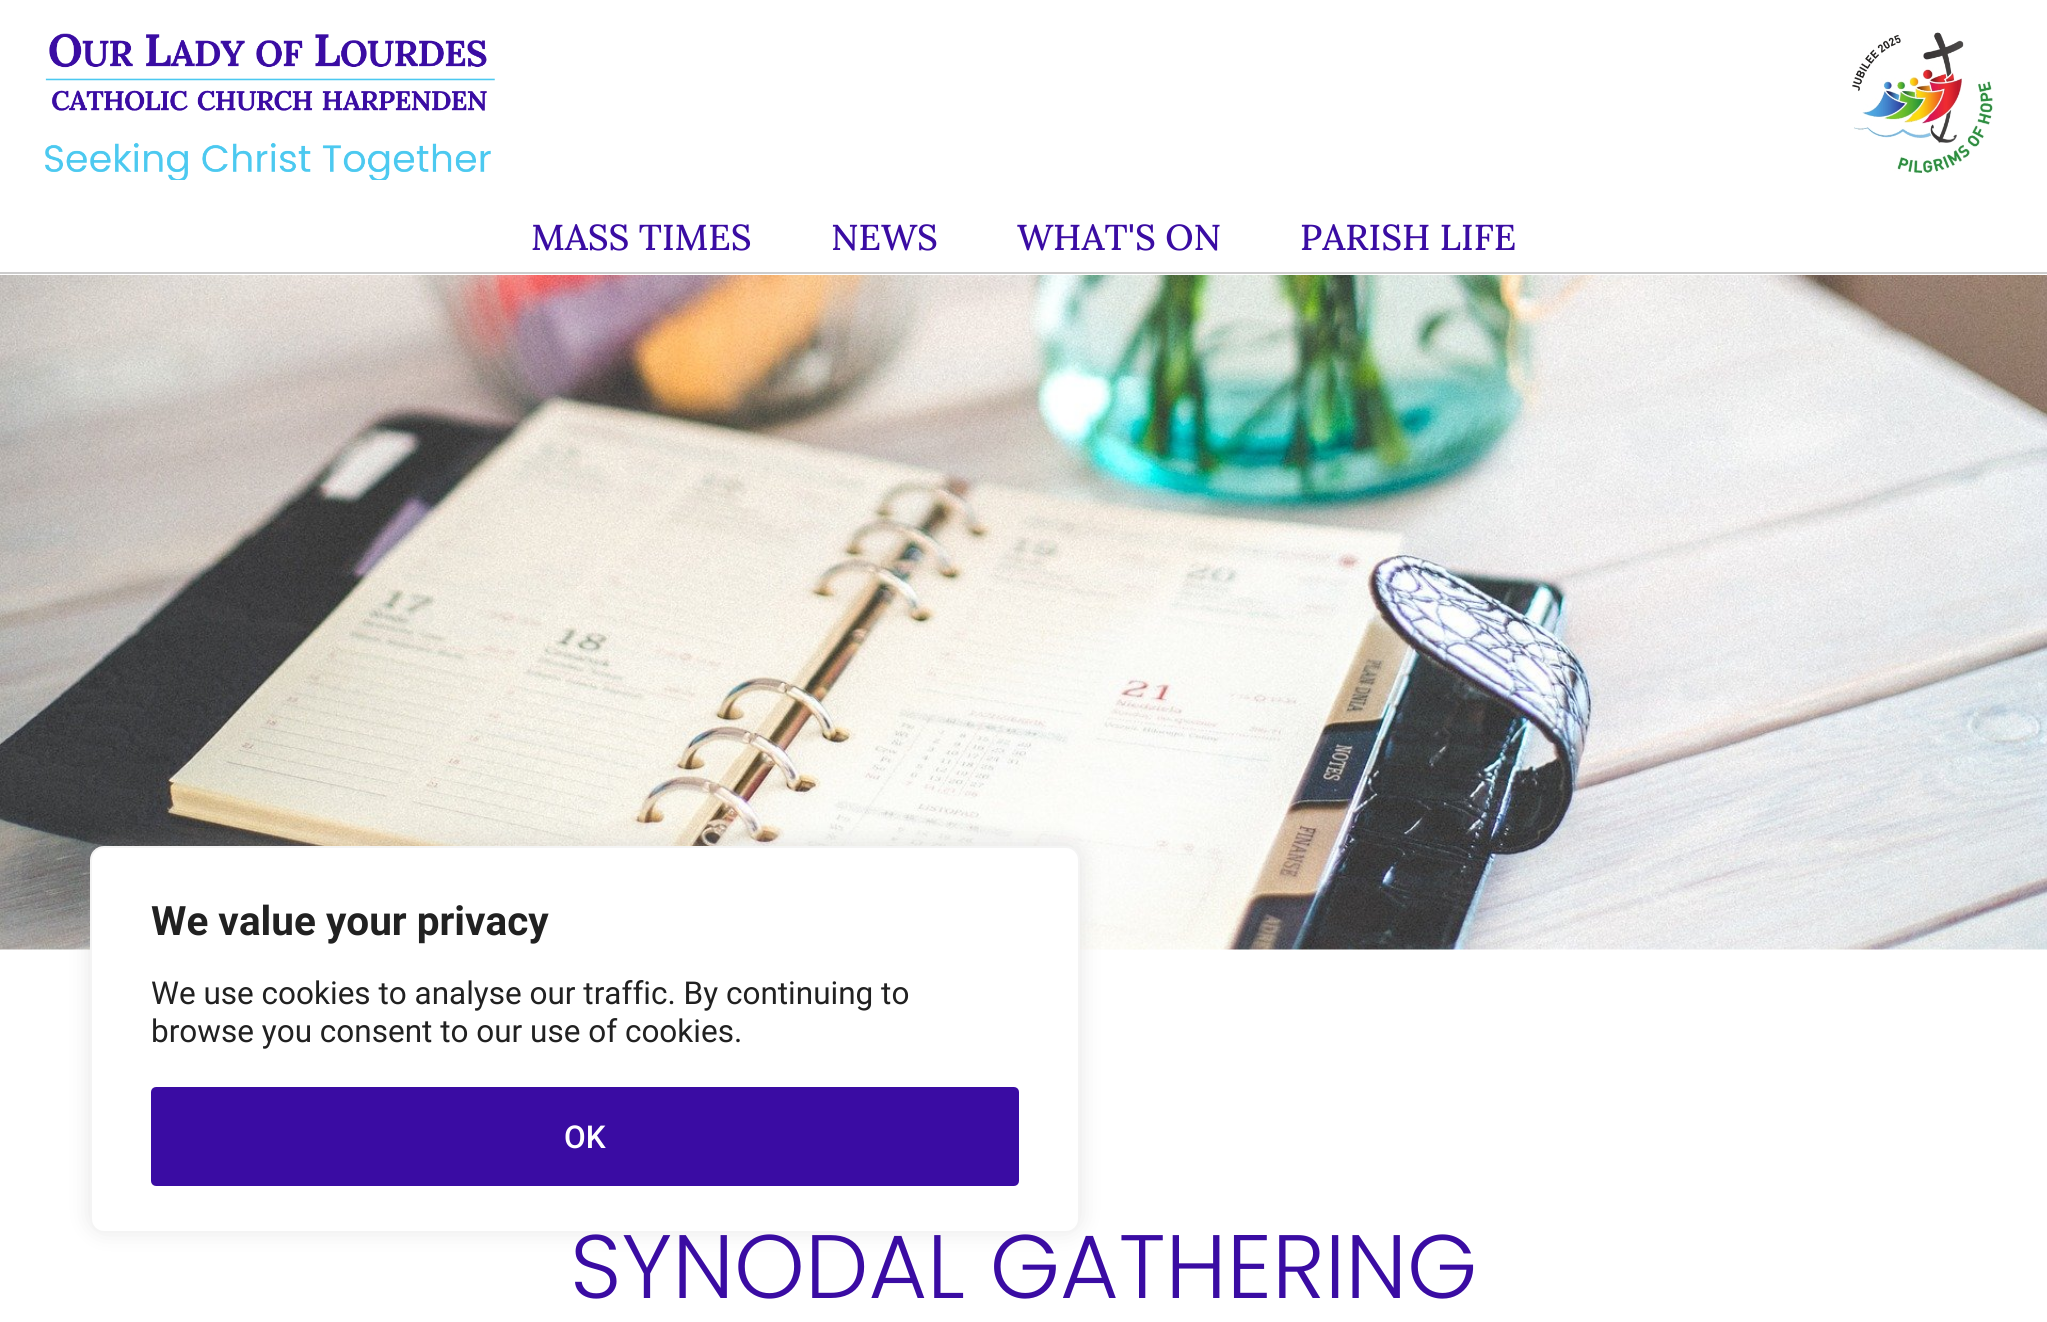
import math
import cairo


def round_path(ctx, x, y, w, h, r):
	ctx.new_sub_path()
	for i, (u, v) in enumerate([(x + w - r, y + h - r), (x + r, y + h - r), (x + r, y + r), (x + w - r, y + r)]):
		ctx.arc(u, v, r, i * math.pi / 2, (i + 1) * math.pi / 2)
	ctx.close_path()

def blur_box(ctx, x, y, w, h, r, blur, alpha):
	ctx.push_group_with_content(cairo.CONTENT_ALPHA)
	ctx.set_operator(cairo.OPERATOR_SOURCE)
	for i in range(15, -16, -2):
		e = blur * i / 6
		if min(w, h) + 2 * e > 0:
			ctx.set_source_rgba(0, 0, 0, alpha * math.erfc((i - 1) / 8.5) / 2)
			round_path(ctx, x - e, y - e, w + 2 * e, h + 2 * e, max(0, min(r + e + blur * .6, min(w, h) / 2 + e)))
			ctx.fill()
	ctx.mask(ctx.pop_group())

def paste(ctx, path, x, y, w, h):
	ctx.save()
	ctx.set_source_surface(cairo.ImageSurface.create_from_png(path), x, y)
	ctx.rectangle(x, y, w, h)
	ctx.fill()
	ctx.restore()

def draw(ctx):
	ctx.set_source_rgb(1, 1, 1)
	ctx.paint()
	paste(ctx, 'media/1.png', 45, 33, 450, 147)
	paste(ctx, 'media/2.png', 1852, 32, 141, 141)
	ctx.set_source_rgb(0.8, 0.8, 0.8)
	ctx.rectangle(0, 272, 2047, 2)
	ctx.fill()
	ctx.select_font_face('Lora Medium')
	ctx.set_font_size(36)
	ctx.set_source_rgb(0.227, 0.047, 0.639)
	for x, y, s in [
		(531, 250, 'MASS TIMES'),
		(831, 250, 'NEWS'),
		(1017, 250, 'WHAT\'S ON'),
		(1300, 250, 'PARISH LIFE'),
	]:
		ctx.move_to(x, y)
		ctx.show_text(s)
	paste(ctx, 'media/3.png', 0, 275, 2047, 675)
	ctx.set_source_rgb(0.675, 0.671, 0.671)
	blur_box(ctx, 90, 844, 990, 387, 14, 11, 0.3)
	ctx.set_source_rgb(1, 1, 1)
	round_path(ctx, 91, 847, 988, 385, 13)
	ctx.fill_preserve()
	ctx.set_source_rgb(0.957, 0.957, 0.957)
	ctx.stroke()
	ctx.select_font_face('Roboto', cairo.FONT_SLANT_NORMAL, cairo.FONT_WEIGHT_BOLD)
	ctx.set_font_size(40.5)
	ctx.set_source_rgb(0.129, 0.129, 0.129)
	ctx.move_to(151, 935)
	ctx.show_text('We value your privacy')
	ctx.select_font_face('Roboto')
	ctx.set_font_size(31.5)
	ctx.move_to(151, 1004)
	ctx.show_text('We use cookies to analyse our traffic. By continuing to')
	ctx.move_to(151, 1042)
	ctx.show_text('browse you consent to our use of cookies.')
	ctx.set_source_rgb(0.227, 0.047, 0.639)
	round_path(ctx, 153.5, 1089.5, 863, 94, 2.5)
	ctx.fill_preserve()
	ctx.set_line_width(5)
	ctx.stroke()
	ctx.select_font_face('Roboto Medium')
	ctx.set_source_rgb(1, 1, 1)
	ctx.move_to(564, 1148)
	ctx.show_text('OK')
	ctx.select_font_face('Poppins Light')
	ctx.set_font_size(90)
	ctx.set_source_rgb(0.227, 0.047, 0.639)
	ctx.move_to(570, 1298)
	ctx.show_text('SYNODAL GATHERING')


surface = cairo.ImageSurface(cairo.FORMAT_RGB24, 2047, 1322)
ctx = cairo.Context(surface)
options = cairo.FontOptions()
options.set_hint_metrics(cairo.HINT_METRICS_OFF)
options.set_hint_style(cairo.HINT_STYLE_NONE)
ctx.set_font_options(options)
ctx.set_miter_limit(4)
draw(ctx)
surface.write_to_png('image.png')
